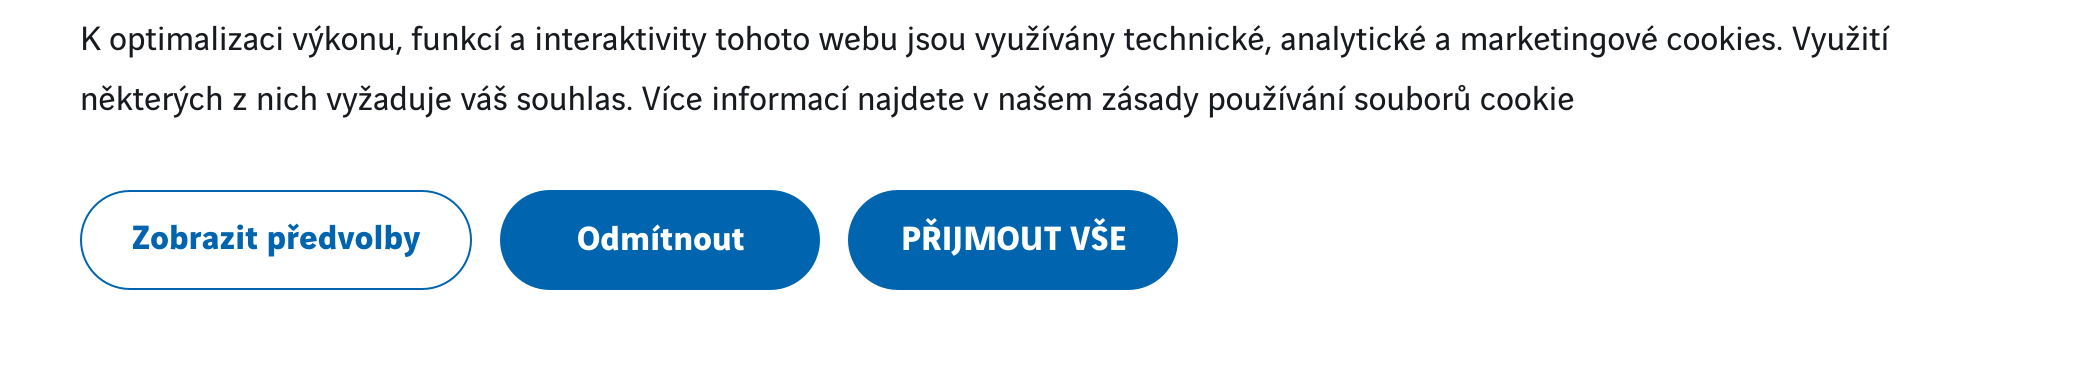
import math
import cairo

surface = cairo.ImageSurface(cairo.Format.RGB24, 2092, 384)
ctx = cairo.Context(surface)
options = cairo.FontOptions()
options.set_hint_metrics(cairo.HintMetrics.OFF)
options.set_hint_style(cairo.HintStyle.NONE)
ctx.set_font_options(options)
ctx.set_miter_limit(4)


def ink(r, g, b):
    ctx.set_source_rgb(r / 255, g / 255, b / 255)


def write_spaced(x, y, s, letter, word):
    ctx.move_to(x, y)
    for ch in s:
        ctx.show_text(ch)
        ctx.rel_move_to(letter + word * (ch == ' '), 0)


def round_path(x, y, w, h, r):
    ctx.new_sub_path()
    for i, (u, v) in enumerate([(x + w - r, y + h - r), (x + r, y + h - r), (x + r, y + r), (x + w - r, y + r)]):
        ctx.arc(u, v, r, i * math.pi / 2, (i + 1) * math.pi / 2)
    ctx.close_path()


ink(255, 255, 255)
ctx.paint()
ctx.select_font_face("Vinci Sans")
ctx.set_font_size(36)
ink(23, 26, 30)
write_spaced(80, 50, "K optimalizaci výkonu, funkcí a interaktivity tohoto webu jsou využívány technické, analytické a marketingové cookies. Využití", 0.2, 0)
write_spaced(80, 110, "některých z nich vyžaduje váš souhlas. Více informací najdete v našem zásady používání souborů cookie", 0.2, 0)
round_path(81, 191, 390, 98, 49)
ink(0, 100, 175)
ctx.stroke()
ctx.select_font_face("Vinci Sans", cairo.FontSlant.NORMAL, cairo.FontWeight.BOLD)
write_spaced(132, 249, "Zobrazit předvolby", 0.2, 0)
round_path(501, 191, 318, 98, 49)
ctx.fill_preserve()
ctx.stroke()
ink(255, 255, 255)
write_spaced(577, 250, "Odmítnout", 0.2, 0)
ink(0, 100, 175)
round_path(849, 191, 328, 98, 49)
ctx.fill_preserve()
ctx.stroke()
ink(255, 255, 255)
write_spaced(901, 250, "PŘIJMOUT VŠE", 0.2, 0)
surface.write_to_png("screenshot.png")
